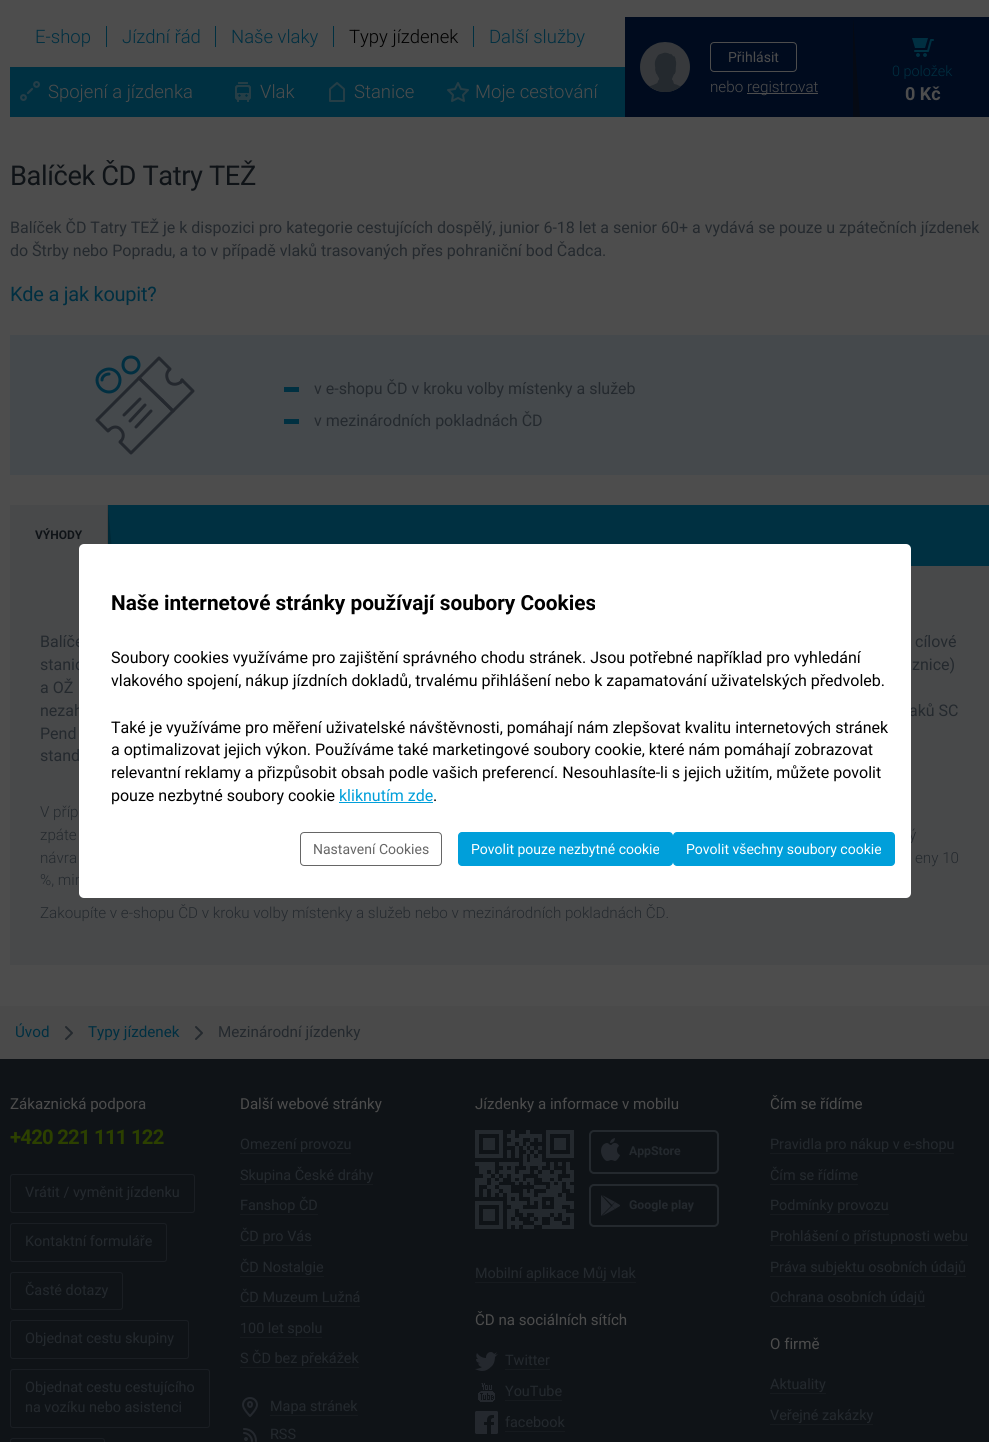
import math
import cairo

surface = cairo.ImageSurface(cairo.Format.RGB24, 989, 1442)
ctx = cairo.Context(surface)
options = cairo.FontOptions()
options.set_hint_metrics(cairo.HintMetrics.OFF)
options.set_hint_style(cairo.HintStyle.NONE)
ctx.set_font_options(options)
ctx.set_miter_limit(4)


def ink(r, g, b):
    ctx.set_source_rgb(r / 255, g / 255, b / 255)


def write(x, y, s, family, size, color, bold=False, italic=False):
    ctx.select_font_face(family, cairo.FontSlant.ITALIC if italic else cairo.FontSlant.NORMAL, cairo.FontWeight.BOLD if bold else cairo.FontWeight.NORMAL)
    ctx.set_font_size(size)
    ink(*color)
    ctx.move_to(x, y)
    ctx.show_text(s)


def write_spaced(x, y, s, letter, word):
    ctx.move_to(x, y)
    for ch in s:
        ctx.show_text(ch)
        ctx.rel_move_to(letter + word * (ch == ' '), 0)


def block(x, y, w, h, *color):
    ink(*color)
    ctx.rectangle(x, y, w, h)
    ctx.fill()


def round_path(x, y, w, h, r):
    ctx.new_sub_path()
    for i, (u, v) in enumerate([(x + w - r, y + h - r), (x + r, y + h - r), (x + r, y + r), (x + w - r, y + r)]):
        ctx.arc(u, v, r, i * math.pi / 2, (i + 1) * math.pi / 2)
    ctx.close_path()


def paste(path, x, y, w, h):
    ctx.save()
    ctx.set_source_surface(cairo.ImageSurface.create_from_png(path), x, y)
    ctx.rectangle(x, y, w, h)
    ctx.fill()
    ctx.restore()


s1 = dict(family="Roboto Light", size=18.5, color=(0, 47, 65))
s2 = dict(family="Roboto Light", size=18.5, color=(0, 0, 0))
s3 = dict(family="Roboto Light", size=18.5, color=(77, 77, 77))
s4 = dict(family="Roboto", size=14, color=(77, 77, 77))
s5 = dict(family="Roboto Light", size=15.2, color=(77, 77, 77))
s6 = dict(family="Roboto Light", size=14.4, color=(0, 47, 65))
s7 = dict(family="Roboto", size=18, color=(77, 77, 77), bold=True)
s8 = dict(family="Roboto", size=16, color=(36, 41, 46))
s9 = dict(family="Roboto", size=12, color=(15, 19, 23), bold=True)
s10 = dict(family="Roboto Light", size=15.2, color=(36, 41, 46))
s11 = dict(family="Roboto", size=20.8, color=(0, 0, 0), bold=True)
s12 = dict(family="Roboto", size=16, color=(0, 0, 0))
s13 = dict(family="Roboto", size=16, color=(0, 159, 218))
s14 = dict(family="Roboto", size=14, color=(102, 102, 102))
s15 = dict(family="Roboto", size=14, color=(255, 255, 255))
s16 = dict(family="Roboto", size=15.2, color=(0, 47, 65))
s17 = dict(family="Roboto", size=15.2, color=(36, 41, 46))
s18 = dict(family="Roboto", size=15.1, color=(77, 77, 77))
s19 = dict(family="Roboto", size=14.4, color=(36, 41, 46))
s20 = dict(family="Roboto", size=12.25, color=(36, 41, 46), bold=True)

ink(77, 77, 77)
ctx.paint()
write(35, 43, "E-shop", **s1)
block(106, 26, 1, 21, 0, 48, 65)
write(122, 43, "Jízdní řád", **s1)
block(215, 26, 1, 21, 0, 48, 65)
write(231, 43, "Naše vlaky", **s1)
block(333, 26, 1, 21, 0, 48, 65)
write(349, 43, "Typy jízdenek", **s2)
block(473, 26, 1, 21, 0, 48, 65)
write(489, 43, "Další služby", **s1)
block(10, 67, 615, 50, 0, 48, 65)
paste("pic1.png", 20, 81, 20, 20)
write(48, 98, "Spojení a jízdenka", **s3)
paste("pic2.png", 235, 82, 16, 20)
write(260, 98, "Vlak", **s3)
ctx.new_path()
ctx.move_to(344, 101)
ctx.line_to(330, 101)
ctx.line_to(330, 89)
ctx.line_to(337, 83)
ctx.line_to(344, 89)
ctx.close_path()
ink(38, 62, 70)
ctx.set_line_cap(cairo.LineCap.ROUND)
ctx.set_line_join(cairo.LineJoin.ROUND)
ctx.stroke()
write(354, 98, "Stanice", **s3)
ctx.new_path()
ctx.move_to(458, 83)
ctx.line_to(461, 89)
ctx.line_to(468, 90)
ctx.line_to(463, 95)
ctx.line_to(464, 101)
ctx.line_to(458, 98)
ctx.line_to(452, 101)
ctx.line_to(453, 95)
ctx.line_to(448, 90)
ctx.line_to(455, 89)
ctx.close_path()
ink(38, 62, 70)
ctx.stroke()
write(475, 98, "Moje cestování", **s3)
block(625, 17, 364, 100, 0, 11, 30)
ink(5, 10, 20)
ctx.set_fill_rule(cairo.FillRule.EVEN_ODD)
ctx.new_path()
ctx.move_to(853, 17)
ctx.line_to(860, 117)
ctx.line_to(853, 117)
ctx.close_path()
ctx.fill()
paste("pic3.png", 640, 42, 50, 50)
round_path(710.5, 42.5, 86, 29, 3.5)
ink(77, 77, 77)
ctx.set_line_width(1)
ctx.set_line_cap(cairo.LineCap.BUTT)
ctx.set_line_join(cairo.LineJoin.MITER)
ctx.stroke()
write(728, 62, "Přihlásit", **s4)
write(710, 92, "nebo", **s5)
block(747, 93, 71, 1, 77, 77, 77)
write(747, 92, "registrovat", **s5)
paste("pic4.png", 912, 38, 22, 19)
write(892, 76, "0 položek", **s6)
write(905, 100, "0 Kč", **s7)
ctx.select_font_face("Roboto")
ctx.set_font_size(27.25)
ink(15, 19, 23)
write_spaced(10, 185, "Balíček ČD Tatry TEŽ", -0.4, 0)
write(10, 233, "Balíček ČD Tatry TEŽ je k dispozici pro kategorie cestujících dospělý, junior 6-18 let a senior 60+ a vydává se pouze u zpátečních jízdenek", **s8)
write(10, 256, "do Štrby nebo Popradu, a to v případě vlaků trasovaných přes pohraniční bod Čadca.", **s8)
ctx.set_font_size(20)
ink(0, 47, 65)
write_spaced(10, 301, "Kde a jak koupit?", -0.25, 0)
block(10, 335, 979, 140, 69, 73, 76)
paste("pic5.png", 95, 355, 100, 100)
block(284, 387, 15, 5, 0, 48, 65)
write(314, 394, "v e-shopu ČD v kroku volby místenky a služeb", **s8)
block(284, 419, 15, 5, 0, 48, 65)
write(314, 426, "v mezinárodních pokladnách ČD", **s8)
block(108, 505, 881, 61, 0, 48, 65)
block(10, 505, 97, 61, 72, 73, 74)
ink(66, 66, 66)
ctx.set_fill_rule(cairo.FillRule.WINDING)
ctx.new_path()
ctx.move_to(108, 505)
ctx.line_to(108, 566)
ctx.line_to(107, 565)
ctx.line_to(107, 505)
ctx.close_path()
ctx.fill()
write(35, 539, "VÝHODY", **s9)
paste("pic6.png", 108, 510, 4, 34)
block(10, 566, 979, 399, 72, 73, 74)
write(40, 647, "Balíče", **s8)
write(915, 647, "cílové", **s8)
write(40, 670, "stanic", **s8)
write(912, 670, "znice)", **s8)
write(40, 693, "a OŽ", **s8)
write(40, 716, "nezah", **s8)
write(909, 716, "aků SC", **s8)
write(40, 739, "Pend", **s8)
write(40, 761, "stand", **s8)
write(40, 817, "V příp", **s10)
write(40, 840, "zpáte", **s10)
write(909, 840, "ý", **s10)
write(40, 863, "návra", **s10)
write(915, 863, "eny 10", **s10)
write(40, 885, "%, min", **s10)
write(40, 918, "Zakoupíte v e-shopu ČD v kroku volby místenky a služeb nebo v mezinárodních pokladnách ČD.", **s10)
ink(255, 255, 255)
round_path(79, 544, 832, 354, 5)
ctx.fill()
write(111, 610, "Naše internetové stránky používají soubory Cookies", **s11)
write(111, 663, "Soubory cookies využíváme pro zajištění správného chodu stránek. Jsou potřebné například pro vyhledání", **s12)
write(111, 686, "vlakového spojení, nákup jízdních dokladů, trvalému přihlášení nebo k zapamatování uživatelských předvoleb.", **s12)
write(111, 733, "Také je využíváme pro měření uživatelské návštěvnosti, pomáhají nám zlepšovat kvalitu internetových stránek", **s12)
write(111, 755, "a optimalizovat jejich výkon. Používáme také marketingové soubory cookie, které nám pomáhají zobrazovat", **s12)
write(111, 778, "relevantní reklamy a přizpůsobit obsah podle vašich preferencí. Nesouhlasíte-li s jejich užitím, můžete povolit", **s12)
write(111, 801, "pouze nezbytné soubory cookie", **s12)
write(339, 801, "kliknutím zde", **s13)
block(339, 802, 94, 1, 0, 159, 218)
write(433, 801, ".", **s12)
round_path(300.5, 832.5, 141, 33, 3.5)
ink(102, 102, 102)
ctx.stroke()
write(313, 854, "Nastavení Cookies", **s14)
ink(0, 159, 218)
round_path(458, 832, 215, 34, 4)
ctx.fill()
write(471, 854, "Povolit pouze nezbytné cookie", **s15)
ink(0, 159, 218)
round_path(673, 832, 222, 34, 4)
ctx.fill()
write(686, 854, "Povolit všechny soubory cookie", **s15)
block(0, 1006, 989, 53, 74, 74, 74)
ctx.new_path()
ctx.move_to(66, 1039)
ctx.line_to(72, 1033)
ctx.move_to(72, 1033)
ctx.line_to(66, 1027)
ink(36, 41, 46)
ctx.set_line_width(2)
ctx.set_line_cap(cairo.LineCap.ROUND)
ctx.set_line_join(cairo.LineJoin.ROUND)
ctx.stroke()
write(15, 1037, "Úvod", **s16)
ctx.new_path()
ctx.move_to(196, 1039)
ctx.line_to(202, 1033)
ctx.move_to(202, 1033)
ctx.line_to(196, 1027)
ink(36, 41, 46)
ctx.stroke()
write(88, 1037, "Typy jízdenek", **s16)
write(218, 1037, "Mezinárodní jízdenky", **s17)
block(0, 1059, 989, 383, 15, 19, 23)
write(10, 1109, "Zákaznická podpora", **s18)
ctx.select_font_face("Roboto", cairo.FontSlant.NORMAL, cairo.FontWeight.BOLD)
ctx.set_font_size(20.25)
ink(44, 64, 0)
write_spaced(10, 1144, "+420 221 111 122", -0.75, 0)
round_path(10.5, 1174.5, 184, 38, 2.5)
ink(26, 30, 35)
ctx.set_line_width(1)
ctx.set_line_cap(cairo.LineCap.BUTT)
ctx.set_line_join(cairo.LineJoin.MITER)
ctx.stroke()
write(25, 1197, "Vrátit / vyměnit jízdenku", **s19)
round_path(10.5, 1223.5, 156, 38, 2.5)
ink(26, 30, 35)
ctx.stroke()
write(25, 1246, "Kontaktní formuláře", **s19)
round_path(10.5, 1272.5, 112, 37, 2.5)
ink(26, 30, 35)
ctx.stroke()
write(25, 1295, "Časté dotazy", **s19)
round_path(10.5, 1320.5, 178, 38, 2.5)
ink(26, 30, 35)
ctx.stroke()
write(25, 1343, "Objednat cestu skupiny", **s19)
round_path(10.5, 1369.5, 199, 58, 2.5)
ink(26, 30, 35)
ctx.stroke()
write(25, 1392, "Objednat cestu cestujícího", **s19)
write(25, 1412, "na vozíku nebo asistenci", **s19)
round_path(10.5, 1438.5, 94, 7, 2.5)
ink(26, 30, 35)
ctx.stroke()
write(240, 1109, "Další webové stránky", **s18)
write(240, 1149, "Omezení provozu", **s19)
block(240, 1153, 111, 1, 22, 26, 30)
write(240, 1180, "Skupina České dráhy", **s19)
block(240, 1184, 133, 1, 22, 26, 30)
write(240, 1210, "Fanshop ČD", **s19)
block(240, 1214, 78, 1, 22, 26, 30)
write(240, 1241, "ČD pro Vás", **s19)
block(240, 1245, 72, 1, 22, 26, 30)
write(240, 1272, "ČD Nostalgie", **s19)
block(240, 1276, 84, 1, 22, 26, 30)
write(240, 1302, "ČD Muzeum Lužná", **s19)
block(240, 1306, 120, 1, 22, 26, 30)
write(240, 1333, "100 let spolu", **s19)
block(240, 1337, 82, 1, 22, 26, 30)
write(240, 1363, "S ČD bez překážek", **s19)
block(240, 1367, 119, 1, 22, 26, 30)
paste("pic7.png", 242, 1397, 16, 20)
write(270, 1411, "Mapa stránek", **s19)
block(270, 1415, 88, 1, 22, 26, 30)
paste("pic8.png", 243, 1428, 14, 14)
write(270, 1439, "RSS", **s19)
write(475, 1109, "Jízdenky a informace v mobilu", **s18)
paste("pic9.png", 475, 1130, 99, 99)
paste("pic10.png", 601, 1138, 19, 23)
round_path(590, 1131, 128, 42, 4)
ink(36, 41, 46)
ctx.set_line_width(2)
ctx.stroke()
write(629, 1155, "AppStore", **s20)
paste("pic11.png", 601, 1195, 19, 21)
round_path(590, 1185, 128, 41, 4)
ctx.stroke()
write(629, 1209, "Google play", **s20)
write(475, 1278, "Mobilní aplikace Můj vlak", **s19)
block(475, 1282, 161, 1, 22, 26, 30)
write(475, 1325, "ČD na sociálních sítích", **s18)
paste("pic12.png", 475, 1352, 23, 19)
write(505, 1365, "Twitter", **s19)
block(505, 1369, 45, 1, 22, 26, 30)
paste("pic13.png", 478, 1383, 17, 19)
write(505, 1396, "YouTube", **s19)
block(505, 1400, 57, 1, 22, 26, 30)
paste("pic14.png", 475, 1411, 23, 23)
write(505, 1427, "facebook", **s19)
block(505, 1431, 60, 1, 22, 26, 30)
write(770, 1109, "Čím se řídíme", **s18)
write(770, 1149, "Pravidla pro nákup v e-shopu", **s19)
block(770, 1153, 184, 1, 22, 26, 30)
write(770, 1180, "Čím se řídíme", **s19)
block(770, 1184, 88, 1, 22, 26, 30)
write(770, 1210, "Podmínky provozu", **s19)
block(770, 1214, 119, 1, 22, 26, 30)
write(770, 1241, "Prohlášení o přístupnosti webu", **s19)
block(770, 1245, 198, 1, 22, 26, 30)
write(770, 1272, "Práva subjektu osobních údajů", **s19)
block(770, 1276, 196, 1, 22, 26, 30)
write(770, 1302, "Ochrana osobních údajů", **s19)
block(770, 1306, 155, 1, 22, 26, 30)
write(770, 1349, "O firmě", **s18)
write(770, 1389, "Aktuality", **s19)
block(770, 1393, 56, 1, 22, 26, 30)
write(770, 1420, "Veřejné zakázky", **s19)
block(770, 1424, 103, 1, 22, 26, 30)
surface.write_to_png("screenshot.png")
